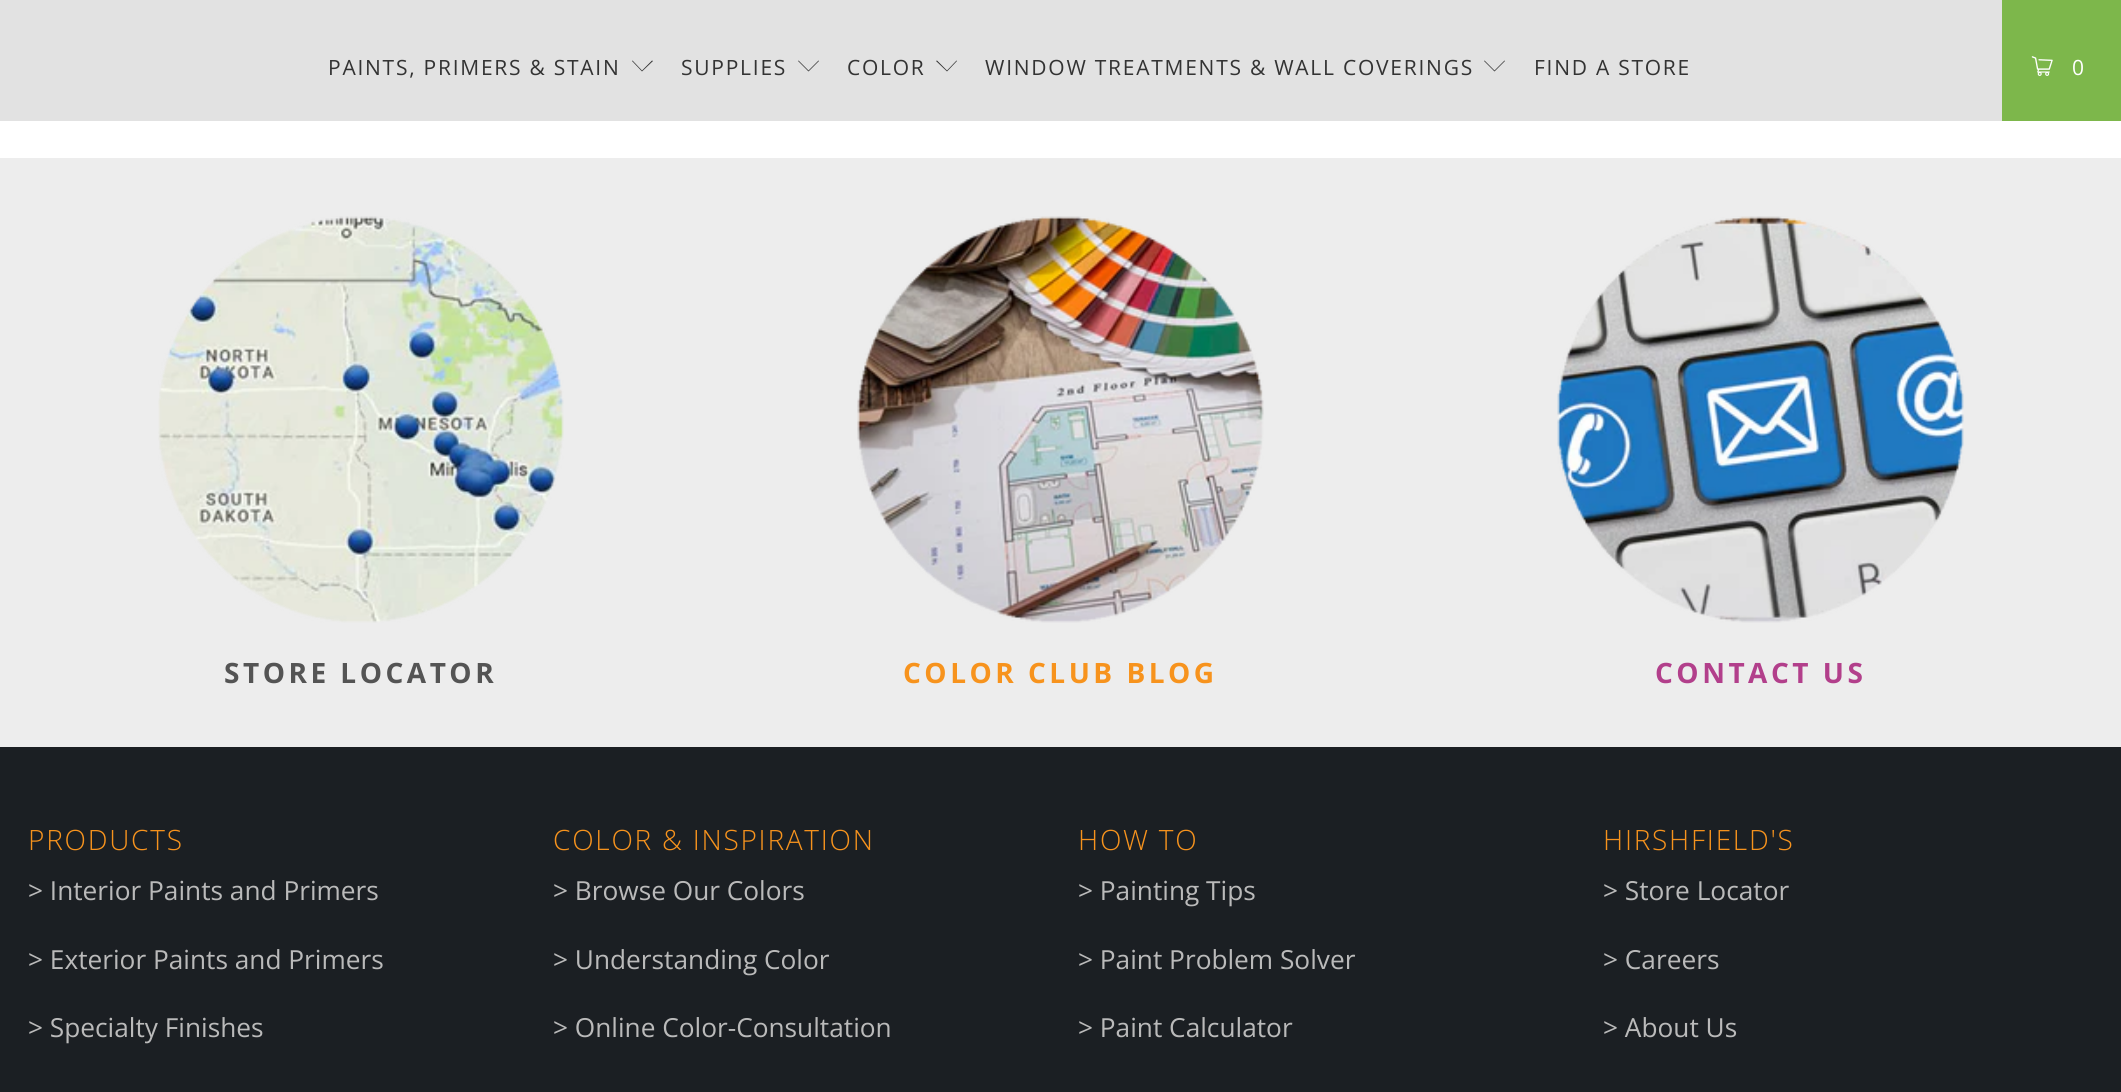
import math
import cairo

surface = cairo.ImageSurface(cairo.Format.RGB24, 2121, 1092)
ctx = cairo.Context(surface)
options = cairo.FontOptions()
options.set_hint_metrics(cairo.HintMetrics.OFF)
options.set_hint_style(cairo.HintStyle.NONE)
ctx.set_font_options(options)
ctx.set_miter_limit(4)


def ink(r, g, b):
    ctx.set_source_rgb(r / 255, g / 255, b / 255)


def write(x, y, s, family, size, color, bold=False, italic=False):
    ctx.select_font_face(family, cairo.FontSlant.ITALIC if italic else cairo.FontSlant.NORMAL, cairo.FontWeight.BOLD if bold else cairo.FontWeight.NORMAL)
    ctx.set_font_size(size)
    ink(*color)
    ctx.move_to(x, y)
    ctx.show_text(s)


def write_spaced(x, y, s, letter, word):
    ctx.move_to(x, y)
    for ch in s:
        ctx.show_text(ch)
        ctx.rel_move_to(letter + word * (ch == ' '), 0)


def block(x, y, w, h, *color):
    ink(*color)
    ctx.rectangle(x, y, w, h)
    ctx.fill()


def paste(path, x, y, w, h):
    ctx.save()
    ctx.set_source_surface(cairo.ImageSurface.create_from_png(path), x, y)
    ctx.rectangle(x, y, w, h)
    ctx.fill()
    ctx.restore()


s1 = dict(family="Open Sans", size=26.25, color=(186, 186, 186))

ink(255, 255, 255)
ctx.paint()
block(0, 0, 2002, 121, 226, 226, 226)
ctx.select_font_face("Open Sans")
ctx.set_font_size(21)
ink(51, 51, 51)
write_spaced(328, 75, "PAINTS, PRIMERS & STAIN", 1.75, 0)
ctx.new_path()
ctx.move_to(642, 71.5)
ctx.line_to(632, 61)
ctx.line_to(632.5, 60.5)
ctx.line_to(642, 70.5)
ctx.line_to(652, 60.5)
ctx.line_to(653, 61)
ctx.close_path()
ctx.fill()
write_spaced(681, 75, "SUPPLIES", 1.75, 0)
ctx.new_path()
ctx.move_to(808.5, 71.5)
ctx.line_to(798, 61)
ctx.line_to(798.5, 60.5)
ctx.line_to(808.5, 70.5)
ctx.line_to(818.5, 60.5)
ctx.line_to(819, 61)
ctx.close_path()
ctx.fill()
write_spaced(847, 75, "COLOR", 1.75, 0)
ctx.new_path()
ctx.move_to(947, 71.5)
ctx.line_to(936, 61)
ctx.line_to(937, 60.5)
ctx.line_to(947, 70.5)
ctx.line_to(956.5, 60.5)
ctx.line_to(957, 61)
ctx.close_path()
ctx.fill()
write_spaced(985, 75, "WINDOW TREATMENTS & WALL COVERINGS", 1.75, 0)
ctx.new_path()
ctx.move_to(1494.5, 71.5)
ctx.line_to(1484, 61)
ctx.line_to(1484.5, 60.5)
ctx.line_to(1494.5, 70.5)
ctx.line_to(1504.5, 60.5)
ctx.line_to(1505, 61)
ctx.close_path()
ctx.fill()
write_spaced(1534, 75, "FIND A STORE", 1.75, 0)
block(2002, 0, 119, 121, 125, 183, 75)
paste("pic1.png", 2031, 56, 22, 20)
ink(255, 255, 255)
write_spaced(2072, 75, "0", 1.75, 0)
block(0, 158, 2121, 589, 237, 237, 237)
paste("pic2.png", 158, 216, 406, 407)
ctx.select_font_face("Open Sans", cairo.FontSlant.NORMAL, cairo.FontWeight.BOLD)
ctx.set_font_size(28)
ink(84, 84, 84)
write_spaced(224, 683, "STORE LOCATOR", 3.5, 0)
paste("pic3.png", 857, 216, 407, 407)
ink(247, 147, 29)
write_spaced(903, 683, "COLOR CLUB BLOG", 3.5, 0)
paste("pic4.png", 1557, 216, 407, 407)
ink(178, 63, 139)
write_spaced(1655, 683, "CONTACT US", 3.5, 0)
block(0, 747, 2121, 345, 27, 31, 35)
ctx.select_font_face("Open Sans Light")
ink(247, 147, 29)
write_spaced(28, 850, "PRODUCTS", 1.75, 0)
write(28, 900, "> Interior Paints and Primers", **s1)
write(28, 969, "> Exterior Paints and Primers", **s1)
write(28, 1037, "> Specialty Finishes", **s1)
ctx.select_font_face("Open Sans Light")
ctx.set_font_size(28)
ink(247, 147, 29)
write_spaced(553, 850, "COLOR & INSPIRATION", 1.75, 0)
write(553, 900, "> Browse Our Colors", **s1)
write(553, 969, "> Understanding Color", **s1)
write(553, 1037, "> Online Color-Consultation", **s1)
ctx.select_font_face("Open Sans Light")
ctx.set_font_size(28)
ink(247, 147, 29)
write_spaced(1078, 850, "HOW TO", 1.75, 0)
write(1078, 900, "> Painting Tips", **s1)
write(1078, 969, "> Paint Problem Solver", **s1)
write(1078, 1037, "> Paint Calculator", **s1)
ctx.select_font_face("Open Sans Light")
ctx.set_font_size(28)
ink(247, 147, 29)
write_spaced(1603, 850, "HIRSHFIELD'S", 1.75, 0)
write(1603, 900, "> Store Locator", **s1)
write(1603, 969, "> Careers", **s1)
write(1603, 1037, "> About Us", **s1)
surface.write_to_png("screenshot.png")
